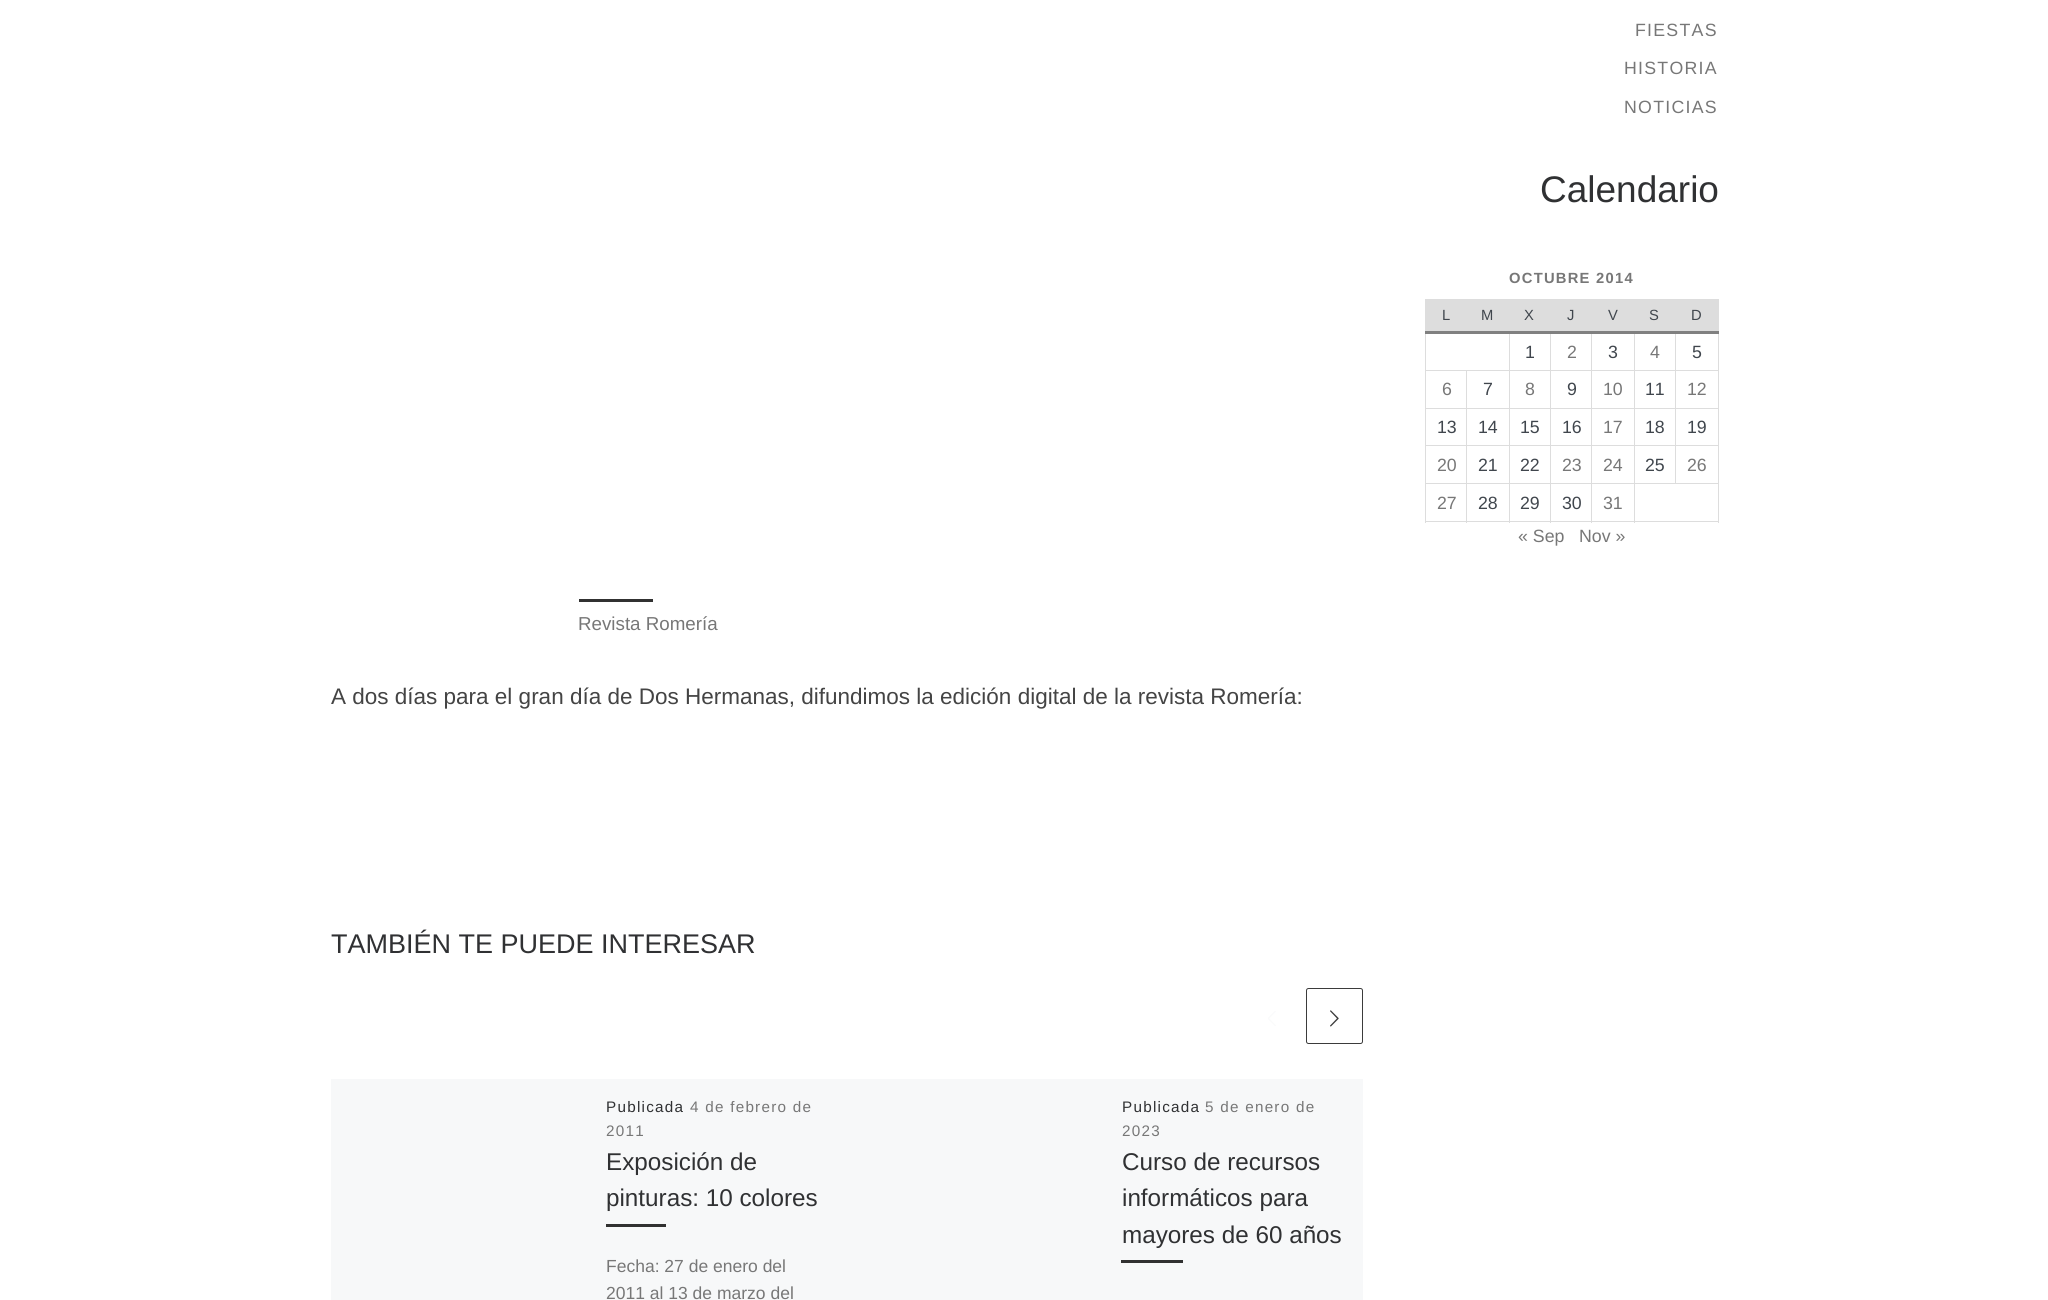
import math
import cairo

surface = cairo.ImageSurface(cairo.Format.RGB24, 2048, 1300)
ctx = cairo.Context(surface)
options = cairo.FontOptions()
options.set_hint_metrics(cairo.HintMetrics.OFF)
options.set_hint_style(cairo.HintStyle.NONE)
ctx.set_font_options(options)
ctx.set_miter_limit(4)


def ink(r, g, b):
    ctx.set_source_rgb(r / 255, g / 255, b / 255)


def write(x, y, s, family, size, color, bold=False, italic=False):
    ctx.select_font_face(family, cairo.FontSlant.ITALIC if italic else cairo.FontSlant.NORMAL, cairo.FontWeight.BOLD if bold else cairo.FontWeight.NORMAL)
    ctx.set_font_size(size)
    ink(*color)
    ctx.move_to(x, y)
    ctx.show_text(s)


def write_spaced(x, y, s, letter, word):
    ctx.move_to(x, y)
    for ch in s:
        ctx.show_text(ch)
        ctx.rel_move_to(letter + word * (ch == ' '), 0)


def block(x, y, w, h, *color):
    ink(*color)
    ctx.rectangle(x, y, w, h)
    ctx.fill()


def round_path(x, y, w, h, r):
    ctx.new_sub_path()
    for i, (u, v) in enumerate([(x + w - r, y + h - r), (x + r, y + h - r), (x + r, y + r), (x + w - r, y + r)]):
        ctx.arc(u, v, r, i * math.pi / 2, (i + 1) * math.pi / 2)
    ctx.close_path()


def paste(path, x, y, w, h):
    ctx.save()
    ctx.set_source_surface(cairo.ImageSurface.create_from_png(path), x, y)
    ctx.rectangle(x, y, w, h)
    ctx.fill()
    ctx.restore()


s1 = dict(family="Liberation Sans", size=37, color=(48, 49, 51))
s2 = dict(family="Liberation Sans", size=17.75, color=(64, 70, 77))
s3 = dict(family="Liberation Sans", size=17.75, color=(119, 119, 119))
s4 = dict(family="Liberation Sans", size=18.75, color=(119, 119, 119))
s5 = dict(family="Liberation Sans", size=22.5, color=(68, 68, 68))
s6 = dict(family="Liberation Sans", size=27, color=(48, 49, 51))
s7 = dict(family="Liberation Sans", size=24.25, color=(48, 49, 51))
s8 = dict(family="Liberation Sans", size=17.5, color=(119, 119, 119))

ink(255, 255, 255)
ctx.paint()
ctx.select_font_face("Liberation Sans")
ctx.set_font_size(17.75)
ink(119, 119, 119)
write_spaced(1635, 36, "FIESTAS", 1.25, 0)
write_spaced(1624, 74, "HISTORIA", 1.25, 0)
write_spaced(1624, 113, "NOTICIAS", 1.25, 0)
write(1540, 202, "Calendario", **s1)
ctx.select_font_face("Liberation Sans", cairo.FontSlant.NORMAL, cairo.FontWeight.BOLD)
ctx.set_font_size(14.75)
ink(119, 119, 119)
write_spaced(1509, 283, "OCTUBRE 2014", 1.25, 0)
block(1425, 299, 294, 1, 221, 221, 221)
block(1675, 370, 44, 1, 221, 221, 221)
block(1675, 408, 44, 1, 221, 221, 221)
block(1675, 445, 44, 1, 221, 221, 221)
block(1634, 483, 85, 1, 221, 221, 221)
block(1675, 445, 1, 39, 221, 221, 221)
block(1634, 445, 42, 1, 221, 221, 221)
block(1675, 408, 1, 38, 221, 221, 221)
block(1634, 408, 42, 1, 221, 221, 221)
block(1675, 370, 1, 39, 221, 221, 221)
block(1634, 370, 42, 1, 221, 221, 221)
block(1718, 483, 1, 40, 221, 221, 221)
block(1634, 521, 85, 1, 221, 221, 221)
block(1634, 483, 1, 40, 221, 221, 221)
block(1591, 483, 44, 1, 221, 221, 221)
block(1634, 445, 1, 39, 221, 221, 221)
block(1591, 445, 44, 1, 221, 221, 221)
block(1634, 408, 1, 38, 221, 221, 221)
block(1591, 408, 44, 1, 221, 221, 221)
block(1634, 370, 1, 39, 221, 221, 221)
block(1591, 370, 44, 1, 221, 221, 221)
block(1591, 521, 44, 1, 221, 221, 221)
block(1591, 483, 1, 40, 221, 221, 221)
block(1550, 483, 43, 1, 221, 221, 221)
block(1591, 445, 1, 39, 221, 221, 221)
block(1550, 445, 43, 1, 221, 221, 221)
block(1591, 408, 1, 38, 221, 221, 221)
block(1550, 408, 43, 1, 221, 221, 221)
block(1591, 370, 1, 39, 221, 221, 221)
block(1550, 370, 43, 1, 221, 221, 221)
block(1550, 521, 43, 1, 221, 221, 221)
block(1550, 483, 1, 40, 221, 221, 221)
block(1509, 483, 42, 1, 221, 221, 221)
block(1550, 445, 1, 39, 221, 221, 221)
block(1509, 445, 42, 1, 221, 221, 221)
block(1550, 408, 1, 38, 221, 221, 221)
block(1509, 408, 42, 1, 221, 221, 221)
block(1550, 370, 1, 39, 221, 221, 221)
block(1509, 370, 42, 1, 221, 221, 221)
block(1509, 521, 42, 1, 221, 221, 221)
block(1509, 483, 1, 40, 221, 221, 221)
block(1466, 483, 44, 1, 221, 221, 221)
block(1509, 445, 1, 39, 221, 221, 221)
block(1466, 445, 44, 1, 221, 221, 221)
block(1509, 408, 1, 38, 221, 221, 221)
block(1466, 408, 44, 1, 221, 221, 221)
block(1509, 370, 1, 39, 221, 221, 221)
block(1466, 370, 44, 1, 221, 221, 221)
block(1466, 521, 44, 1, 221, 221, 221)
block(1466, 483, 1, 40, 221, 221, 221)
block(1425, 483, 43, 1, 221, 221, 221)
block(1466, 445, 1, 39, 221, 221, 221)
block(1425, 445, 43, 1, 221, 221, 221)
block(1466, 408, 1, 38, 221, 221, 221)
block(1425, 408, 43, 1, 221, 221, 221)
block(1466, 370, 1, 39, 221, 221, 221)
block(1425, 370, 43, 1, 221, 221, 221)
block(1425, 521, 43, 1, 221, 221, 221)
block(1425, 483, 1, 40, 221, 221, 221)
block(1425, 445, 1, 39, 221, 221, 221)
block(1425, 408, 1, 38, 221, 221, 221)
block(1425, 331, 1, 78, 221, 221, 221)
block(1425, 299, 1, 34, 221, 221, 221)
block(1718, 445, 1, 39, 221, 221, 221)
block(1718, 408, 1, 38, 221, 221, 221)
block(1718, 331, 1, 78, 221, 221, 221)
block(1718, 299, 1, 34, 221, 221, 221)
block(1509, 331, 1, 40, 221, 221, 221)
block(1550, 331, 1, 40, 221, 221, 221)
block(1591, 331, 1, 40, 221, 221, 221)
block(1634, 331, 1, 40, 221, 221, 221)
block(1675, 331, 1, 40, 221, 221, 221)
block(1425, 331, 294, 3, 128, 128, 128)
block(1426, 300, 292, 31, 221, 221, 221)
ctx.select_font_face("Liberation Sans")
ink(64, 70, 77)
write_spaced(1442, 320, "L", 1.25, 0)
write_spaced(1481, 320, "M", 1.25, 0)
write_spaced(1524, 320, "X", 1.25, 0)
write_spaced(1567, 320, "J", 1.25, 0)
write_spaced(1608, 320, "V", 1.25, 0)
write_spaced(1649, 320, "S", 1.25, 0)
write_spaced(1691, 320, "D", 1.25, 0)
write(1525, 358, "1", **s2)
write(1567, 358, "2", **s3)
write(1608, 358, "3", **s2)
write(1650, 358, "4", **s3)
write(1692, 358, "5", **s2)
write(1442, 395, "6", **s3)
write(1483, 395, "7", **s2)
write(1525, 395, "8", **s3)
write(1567, 395, "9", **s2)
write(1603, 395, "10", **s3)
write(1645, 395, "11", **s2)
write(1687, 395, "12", **s3)
write(1437, 433, "13", **s2)
write(1478, 433, "14", **s2)
write(1520, 433, "15", **s2)
write(1562, 433, "16", **s2)
write(1603, 433, "17", **s3)
write(1645, 433, "18", **s2)
write(1687, 433, "19", **s2)
write(1437, 471, "20", **s3)
write(1478, 471, "21", **s2)
write(1520, 471, "22", **s2)
write(1562, 471, "23", **s3)
write(1603, 471, "24", **s3)
write(1645, 471, "25", **s2)
write(1687, 471, "26", **s3)
write(1437, 509, "27", **s3)
write(1478, 509, "28", **s2)
write(1520, 509, "29", **s2)
write(1562, 509, "30", **s2)
write(1603, 509, "31", **s3)
write(1518, 542, "« Sep", **s3)
write(1579, 542, "Nov »", **s3)
block(579, 599, 74, 3, 49, 49, 49)
write(578, 630, "Revista Romería", **s4)
write(331, 704, "A dos días para el gran día de Dos Hermanas, difundimos la edición digital de la revista Romería:", **s5)
write(331, 953, "TAMBIÉN TE PUEDE INTERESAR", **s6)
paste("pic1.png", 1268, 1011, 8, 15)
round_path(1306.5, 988.5, 56, 55, 2)
ink(59, 59, 59)
ctx.set_line_width(1)
ctx.stroke()
paste("pic2.png", 1330, 1010, 9, 17)
block(331, 1079, 1032, 221, 247, 248, 249)
ctx.set_font_size(15.25)
ink(48, 49, 51)
write_spaced(606, 1112, "Publicada", 1.25, 0)
ink(119, 119, 119)
write_spaced(690, 1112, "4 de febrero de", 1.25, 0)
write_spaced(606, 1136, "2011", 1.25, 0)
write(606, 1170, "Exposición de", **s7)
write(606, 1206, "pinturas: 10 colores", **s7)
block(606, 1224, 60, 3, 49, 49, 49)
write(606, 1272, "Fecha: 27 de enero del", **s8)
write(606, 1299, "2011 al 13 de marzo del", **s8)
ctx.set_font_size(15.25)
ink(48, 49, 51)
write_spaced(1122, 1112, "Publicada", 1.25, 0)
ink(119, 119, 119)
write_spaced(1205, 1112, "5 de enero de", 1.25, 0)
write_spaced(1122, 1136, "2023", 1.25, 0)
write(1122, 1170, "Curso de recursos", **s7)
write(1122, 1206, "informáticos para", **s7)
write(1122, 1243, "mayores de 60 años", **s7)
block(1121, 1260, 62, 3, 49, 49, 49)
surface.write_to_png("screenshot.png")
